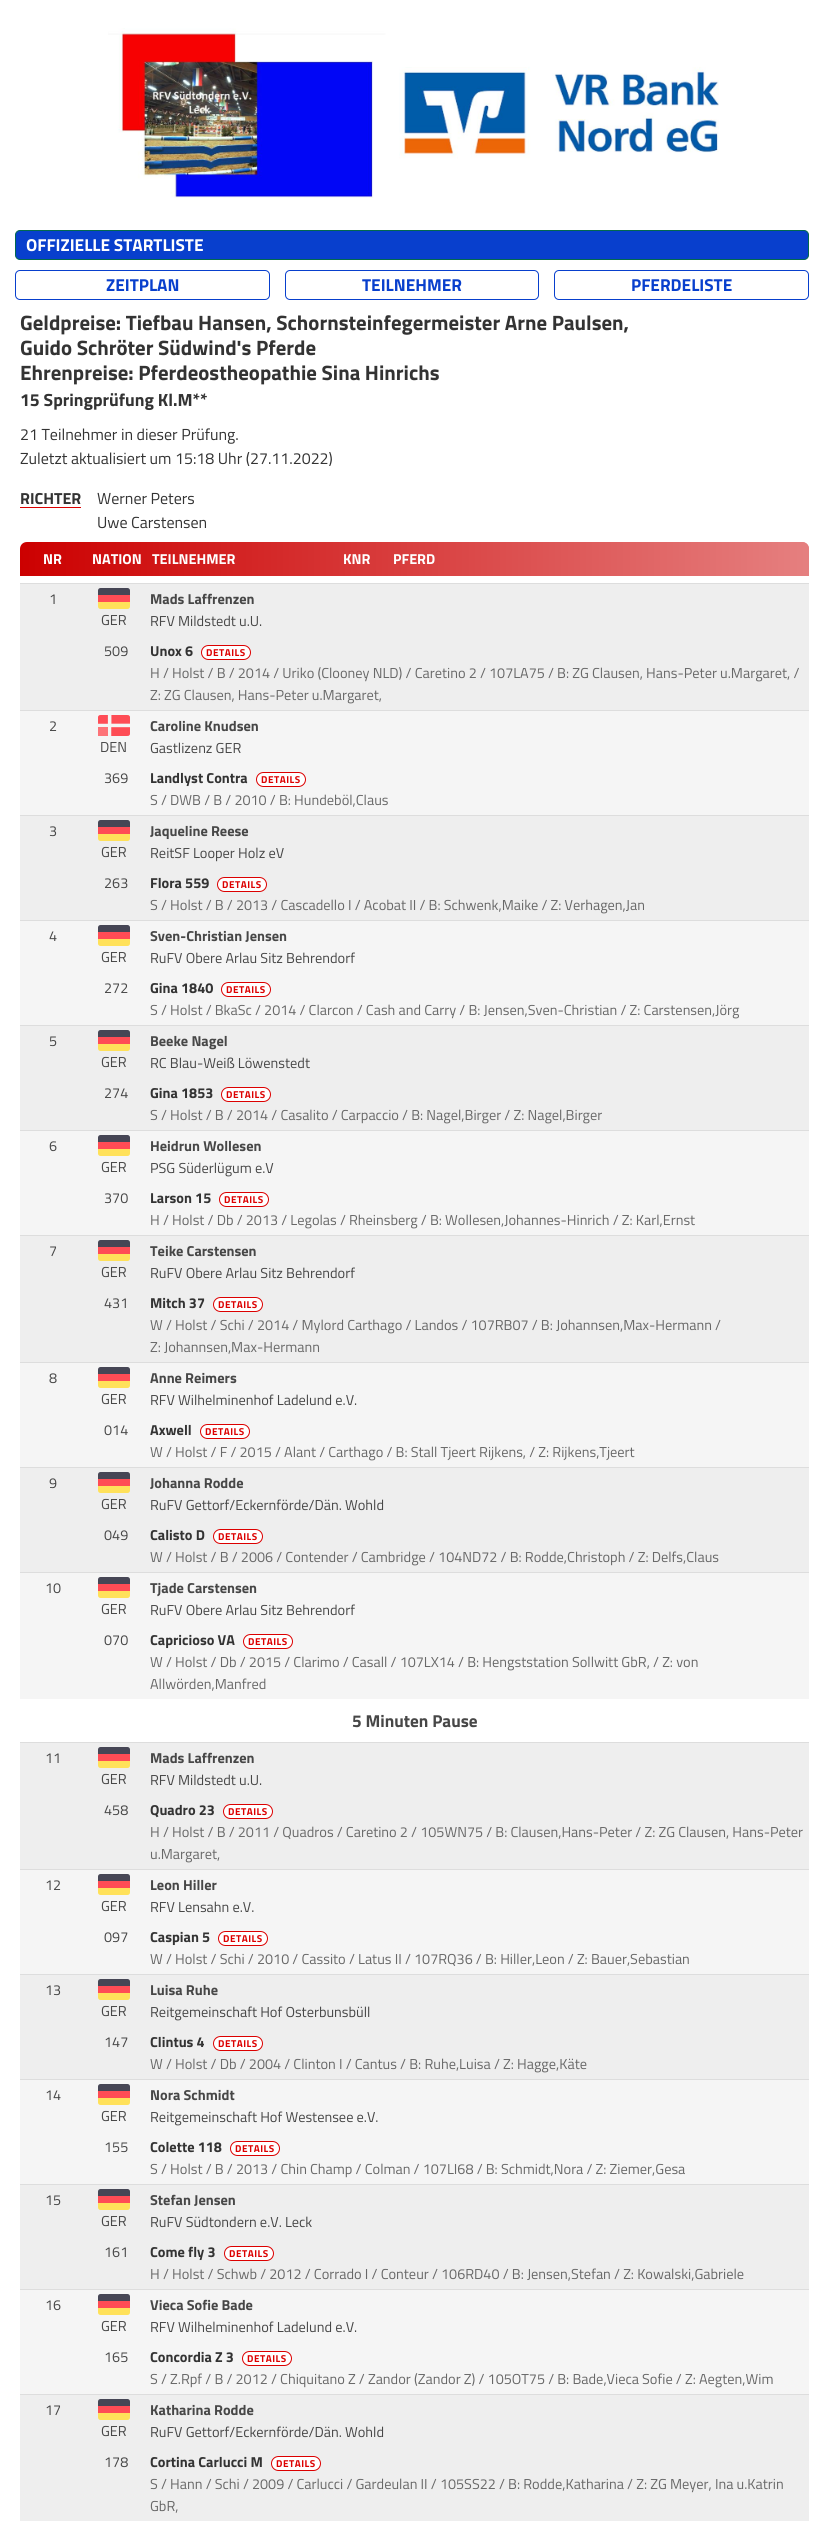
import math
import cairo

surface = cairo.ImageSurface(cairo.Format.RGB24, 829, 2521)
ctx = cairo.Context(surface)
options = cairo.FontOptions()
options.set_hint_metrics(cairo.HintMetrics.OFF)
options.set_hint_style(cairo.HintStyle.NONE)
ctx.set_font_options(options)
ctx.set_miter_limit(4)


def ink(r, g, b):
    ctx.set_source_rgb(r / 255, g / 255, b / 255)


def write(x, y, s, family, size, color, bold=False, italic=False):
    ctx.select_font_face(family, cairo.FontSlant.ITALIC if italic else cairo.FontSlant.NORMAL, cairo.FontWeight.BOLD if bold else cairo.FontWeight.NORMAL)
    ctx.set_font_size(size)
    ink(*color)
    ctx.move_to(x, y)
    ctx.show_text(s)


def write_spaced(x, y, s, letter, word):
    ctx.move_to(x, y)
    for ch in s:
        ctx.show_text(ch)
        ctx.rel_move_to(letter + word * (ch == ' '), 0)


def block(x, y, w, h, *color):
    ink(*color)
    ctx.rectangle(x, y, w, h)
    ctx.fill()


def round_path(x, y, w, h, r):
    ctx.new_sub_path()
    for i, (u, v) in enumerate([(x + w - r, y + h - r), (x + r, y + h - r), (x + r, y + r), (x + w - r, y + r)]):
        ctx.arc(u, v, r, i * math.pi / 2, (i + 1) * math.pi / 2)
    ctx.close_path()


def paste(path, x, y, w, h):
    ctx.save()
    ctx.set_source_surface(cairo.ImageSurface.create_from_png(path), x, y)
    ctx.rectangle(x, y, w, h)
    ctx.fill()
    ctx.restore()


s1 = dict(family="Titillium Web", size=17.25, color=(255, 255, 255), bold=True)
s2 = dict(family="Titillium Web", size=17.25, color=(8, 63, 205), bold=True)
s3 = dict(family="Titillium Web", size=20.8, color=(51, 51, 51), bold=True)
s4 = dict(family="Titillium Web", size=17.6, color=(51, 51, 51), bold=True)
s5 = dict(family="Titillium Web", size=16, color=(51, 51, 51))
s6 = dict(family="Titillium Web", size=16, color=(51, 51, 51), bold=True)
s7 = dict(family="Titillium Web", size=14.4, color=(255, 255, 255), bold=True)
s8 = dict(family="Titillium Web", size=14.4, color=(71, 71, 71))
s9 = dict(family="Titillium Web", size=14.4, color=(71, 71, 71), bold=True)
s10 = dict(family="Titillium Web", size=14.4, color=(51, 51, 51), bold=True)
s11 = dict(family="Titillium Web", size=14.4, color=(104, 104, 104))
s12 = dict(family="Titillium Web", size=17.25, color=(71, 71, 71), bold=True)

ink(255, 255, 255)
ctx.paint()
paste("pic1.png", 108, 28, 611, 170)
ink(8, 63, 205)
round_path(15.5, 230.5, 793, 29, 4.5)
ctx.fill_preserve()
ink(1, 105, 78)
ctx.set_line_width(1)
ctx.stroke()
write(26, 251, "OFFIZIELLE STARTLISTE", **s1)
round_path(15.5, 270.5, 254, 29, 4.5)
ink(8, 63, 205)
ctx.stroke()
write(106, 291, "ZEITPLAN", **s2)
round_path(285.5, 270.5, 253, 29, 4.5)
ctx.stroke()
write(362, 291, "TEILNEHMER", **s2)
round_path(554.5, 270.5, 254, 29, 4.5)
ctx.stroke()
write(631, 291, "PFERDELISTE", **s2)
write(20, 330, "Geldpreise: Tiefbau Hansen, Schornsteinfegermeister Arne Paulsen,", **s3)
write(20, 355, "Guido Schröter Südwind's Pferde", **s3)
write(20, 380, "Ehrenpreise: Pferdeostheopathie Sina Hinrichs", **s3)
write(20, 406, "15 Springprüfung Kl.M**", **s4)
write(20, 440, "21 Teilnehmer in dieser Prüfung.", **s5)
write(20, 464, "Zuletzt aktualisiert um 15:18 Uhr (27.11.2022)", **s5)
write(20, 504, "RICHTER", **s6)
block(20, 507, 61, 1, 220, 0, 0)
write(97, 504, "Werner Peters", **s5)
write(97, 528, "Uwe Carstensen", **s5)
ink(204, 0, 0)
ctx.new_path()
ctx.move_to(27, 542)
ctx.line_to(802, 542)
ctx.curve_to(806, 542, 809, 545, 809, 549)
ctx.line_to(809, 576)
ctx.line_to(20, 576)
ctx.line_to(20, 549)
ctx.curve_to(20, 545, 23, 542, 27, 542)
ctx.close_path()
ctx.fill()
gradient = cairo.LinearGradient(20, 559, 809, 559)
gradient.add_color_stop_rgba(0, 1, 1, 1, 0)
gradient.add_color_stop_rgba(1, 1, 1, 1, 0.5)
ctx.set_source(gradient)
ctx.new_path()
ctx.move_to(27, 542)
ctx.line_to(802, 542)
ctx.curve_to(806, 542, 809, 545, 809, 549)
ctx.line_to(809, 576)
ctx.line_to(20, 576)
ctx.line_to(20, 549)
ctx.curve_to(20, 545, 23, 542, 27, 542)
ctx.close_path()
ctx.fill()
write(43, 564, "NR", **s7)
write(92, 564, "NATION", **s7)
write(152, 564, "TEILNEHMER", **s7)
write(343, 564, "KNR", **s7)
write(393, 564, "PFERD", **s7)
block(20, 584, 789, 126, 238, 238, 238)
block(20, 583, 789, 1, 221, 221, 221)
write(49, 604, "1", **s8)
paste("pic2.png", 98, 588, 32, 21)
write(101, 625, "GER", **s8)
write(150, 604, "Mads Laffrenzen", **s9)
write(150, 626, "RFV Mildstedt u.U.", **s8)
write(104, 656, "509", **s8)
write(150, 656, "Unox 6", **s10)
ink(255, 255, 255)
round_path(201.5, 645.5, 49, 14, 7)
ctx.fill_preserve()
ink(220, 0, 0)
ctx.stroke()
ctx.set_font_size(10)
write_spaced(206, 656, "DETAILS", 0.5, 0)
write(150, 678, "H / Holst / B / 2014 / Uriko (Clooney NLD) / Caretino 2 / 107LA75 / B: ZG Clausen, Hans-Peter u.Margaret, /", **s11)
write(150, 700, "Z: ZG Clausen, Hans-Peter u.Margaret,", **s11)
block(20, 711, 789, 104, 245, 245, 245)
block(20, 710, 789, 1, 221, 221, 221)
write(49, 731, "2", **s8)
paste("pic3.png", 98, 715, 32, 21)
write(100, 752, "DEN", **s8)
write(150, 731, "Caroline Knudsen", **s9)
write(150, 753, "Gastlizenz GER", **s8)
write(104, 783, "369", **s8)
write(150, 783, "Landlyst Contra", **s10)
ink(255, 255, 255)
round_path(256.5, 772.5, 49, 14, 7)
ctx.fill_preserve()
ink(220, 0, 0)
ctx.stroke()
ctx.set_font_size(10)
write_spaced(261, 783, "DETAILS", 0.5, 0)
write(150, 805, "S / DWB / B / 2010 / B: Hundeböl,Claus", **s11)
block(20, 816, 789, 104, 238, 238, 238)
block(20, 815, 789, 1, 221, 221, 221)
write(49, 836, "3", **s8)
paste("pic2.png", 98, 820, 32, 21)
write(101, 857, "GER", **s8)
write(150, 836, "Jaqueline Reese", **s9)
write(150, 858, "ReitSF Looper Holz eV", **s8)
write(104, 888, "263", **s8)
write(150, 888, "Flora 559", **s10)
ink(255, 255, 255)
round_path(217.5, 877.5, 49, 14, 7)
ctx.fill_preserve()
ink(220, 0, 0)
ctx.stroke()
ctx.set_font_size(10)
write_spaced(222, 888, "DETAILS", 0.5, 0)
write(150, 910, "S / Holst / B / 2013 / Cascadello I / Acobat II / B: Schwenk,Maike / Z: Verhagen,Jan", **s11)
block(20, 921, 789, 104, 245, 245, 245)
block(20, 920, 789, 1, 221, 221, 221)
write(49, 941, "4", **s8)
paste("pic4.png", 98, 925, 32, 21)
write(101, 962, "GER", **s8)
write(150, 941, "Sven-Christian Jensen", **s9)
write(150, 963, "RuFV Obere Arlau Sitz Behrendorf", **s8)
write(104, 993, "272", **s8)
write(150, 993, "Gina 1840", **s10)
ink(255, 255, 255)
round_path(221.5, 982.5, 49, 14, 7)
ctx.fill_preserve()
ink(220, 0, 0)
ctx.stroke()
ctx.set_font_size(10)
write_spaced(226, 993, "DETAILS", 0.5, 0)
write(150, 1015, "S / Holst / BkaSc / 2014 / Clarcon / Cash and Carry / B: Jensen,Sven-Christian / Z: Carstensen,Jörg", **s11)
block(20, 1026, 789, 104, 238, 238, 238)
block(20, 1025, 789, 1, 221, 221, 221)
write(49, 1046, "5", **s8)
paste("pic2.png", 98, 1030, 32, 21)
write(101, 1067, "GER", **s8)
write(150, 1046, "Beeke Nagel", **s9)
write(150, 1068, "RC Blau-Weiß Löwenstedt", **s8)
write(104, 1098, "274", **s8)
write(150, 1098, "Gina 1853", **s10)
ink(255, 255, 255)
round_path(221.5, 1087.5, 49, 14, 7)
ctx.fill_preserve()
ink(220, 0, 0)
ctx.stroke()
ctx.set_font_size(10)
write_spaced(226, 1098, "DETAILS", 0.5, 0)
write(150, 1120, "S / Holst / B / 2014 / Casalito / Carpaccio / B: Nagel,Birger / Z: Nagel,Birger", **s11)
block(20, 1131, 789, 104, 245, 245, 245)
block(20, 1130, 789, 1, 221, 221, 221)
write(49, 1151, "6", **s8)
paste("pic4.png", 98, 1135, 32, 21)
write(101, 1172, "GER", **s8)
write(150, 1151, "Heidrun Wollesen", **s9)
write(150, 1173, "PSG Süderlügum e.V", **s8)
write(104, 1203, "370", **s8)
write(150, 1203, "Larson 15", **s10)
ink(255, 255, 255)
round_path(219.5, 1192.5, 49, 14, 7)
ctx.fill_preserve()
ink(220, 0, 0)
ctx.stroke()
ctx.set_font_size(10)
write_spaced(224, 1203, "DETAILS", 0.5, 0)
write(150, 1225, "H / Holst / Db / 2013 / Legolas / Rheinsberg / B: Wollesen,Johannes-Hinrich / Z: Karl,Ernst", **s11)
block(20, 1236, 789, 126, 238, 238, 238)
block(20, 1235, 789, 1, 221, 221, 221)
write(49, 1256, "7", **s8)
paste("pic2.png", 98, 1240, 32, 21)
write(101, 1277, "GER", **s8)
write(150, 1256, "Teike Carstensen", **s9)
write(150, 1278, "RuFV Obere Arlau Sitz Behrendorf", **s8)
write(104, 1308, "431", **s8)
write(150, 1308, "Mitch 37", **s10)
ink(255, 255, 255)
round_path(213.5, 1297.5, 49, 14, 7)
ctx.fill_preserve()
ink(220, 0, 0)
ctx.stroke()
ctx.set_font_size(10)
write_spaced(218, 1308, "DETAILS", 0.5, 0)
write(150, 1330, "W / Holst / Schi / 2014 / Mylord Carthago / Landos / 107RB07 / B: Johannsen,Max-Hermann /", **s11)
write(150, 1352, "Z: Johannsen,Max-Hermann", **s11)
block(20, 1363, 789, 104, 245, 245, 245)
block(20, 1362, 789, 1, 221, 221, 221)
write(49, 1383, "8", **s8)
paste("pic4.png", 98, 1367, 32, 21)
write(101, 1404, "GER", **s8)
write(150, 1383, "Anne Reimers", **s9)
write(150, 1405, "RFV Wilhelminenhof Ladelund e.V.", **s8)
write(104, 1435, "014", **s8)
write(150, 1435, "Axwell", **s10)
ink(255, 255, 255)
round_path(200.5, 1424.5, 49, 14, 7)
ctx.fill_preserve()
ink(220, 0, 0)
ctx.stroke()
ctx.set_font_size(10)
write_spaced(205, 1435, "DETAILS", 0.5, 0)
write(150, 1457, "W / Holst / F / 2015 / Alant / Carthago / B: Stall Tjeert Rijkens, / Z: Rijkens,Tjeert", **s11)
block(20, 1468, 789, 104, 238, 238, 238)
block(20, 1467, 789, 1, 221, 221, 221)
write(49, 1488, "9", **s8)
paste("pic2.png", 98, 1472, 32, 21)
write(101, 1509, "GER", **s8)
write(150, 1488, "Johanna Rodde", **s9)
write(150, 1510, "RuFV Gettorf/Eckernförde/Dän. Wohld", **s8)
write(104, 1540, "049", **s8)
write(150, 1540, "Calisto D", **s10)
ink(255, 255, 255)
round_path(213.5, 1529.5, 49, 14, 7)
ctx.fill_preserve()
ink(220, 0, 0)
ctx.stroke()
ctx.set_font_size(10)
write_spaced(218, 1540, "DETAILS", 0.5, 0)
write(150, 1562, "W / Holst / B / 2006 / Contender / Cambridge / 104ND72 / B: Rodde,Christoph / Z: Delfs,Claus", **s11)
block(20, 1573, 789, 126, 245, 245, 245)
block(20, 1572, 789, 1, 221, 221, 221)
write(45, 1593, "10", **s8)
paste("pic4.png", 98, 1577, 32, 21)
write(101, 1614, "GER", **s8)
write(150, 1593, "Tjade Carstensen", **s9)
write(150, 1615, "RuFV Obere Arlau Sitz Behrendorf", **s8)
write(104, 1645, "070", **s8)
write(150, 1645, "Capricioso VA", **s10)
ink(255, 255, 255)
round_path(243.5, 1634.5, 49, 14, 7)
ctx.fill_preserve()
ink(220, 0, 0)
ctx.stroke()
ctx.set_font_size(10)
write_spaced(248, 1645, "DETAILS", 0.5, 0)
write(150, 1667, "W / Holst / Db / 2015 / Clarimo / Casall / 107LX14 / B: Hengststation Sollwitt GbR, / Z: von", **s11)
write(150, 1689, "Allwörden,Manfred", **s11)
write(352, 1727, "5 Minuten Pause", **s12)
block(20, 1743, 789, 126, 238, 238, 238)
block(20, 1742, 789, 1, 221, 221, 221)
write(45, 1763, "11", **s8)
paste("pic2.png", 98, 1747, 32, 21)
write(101, 1784, "GER", **s8)
write(150, 1763, "Mads Laffrenzen", **s9)
write(150, 1785, "RFV Mildstedt u.U.", **s8)
write(104, 1815, "458", **s8)
write(150, 1815, "Quadro 23", **s10)
ink(255, 255, 255)
round_path(223.5, 1804.5, 49, 14, 7)
ctx.fill_preserve()
ink(220, 0, 0)
ctx.stroke()
ctx.set_font_size(10)
write_spaced(228, 1815, "DETAILS", 0.5, 0)
write(150, 1837, "H / Holst / B / 2011 / Quadros / Caretino 2 / 105WN75 / B: Clausen,Hans-Peter / Z: ZG Clausen, Hans-Peter", **s11)
write(150, 1859, "u.Margaret,", **s11)
block(20, 1870, 789, 104, 245, 245, 245)
block(20, 1869, 789, 1, 221, 221, 221)
write(45, 1890, "12", **s8)
paste("pic4.png", 98, 1874, 32, 21)
write(101, 1911, "GER", **s8)
write(150, 1890, "Leon Hiller", **s9)
write(150, 1912, "RFV Lensahn e.V.", **s8)
write(104, 1942, "097", **s8)
write(150, 1942, "Caspian 5", **s10)
ink(255, 255, 255)
round_path(218.5, 1931.5, 49, 14, 7)
ctx.fill_preserve()
ink(220, 0, 0)
ctx.stroke()
ctx.set_font_size(10)
write_spaced(223, 1942, "DETAILS", 0.5, 0)
write(150, 1964, "W / Holst / Schi / 2010 / Cassito / Latus II / 107RQ36 / B: Hiller,Leon / Z: Bauer,Sebastian", **s11)
block(20, 1975, 789, 104, 238, 238, 238)
block(20, 1974, 789, 1, 221, 221, 221)
write(45, 1995, "13", **s8)
paste("pic2.png", 98, 1979, 32, 21)
write(101, 2016, "GER", **s8)
write(150, 1995, "Luisa Ruhe", **s9)
write(150, 2017, "Reitgemeinschaft Hof Osterbunsbüll", **s8)
write(104, 2047, "147", **s8)
write(150, 2047, "Clintus 4", **s10)
ink(255, 255, 255)
round_path(213.5, 2036.5, 49, 14, 7)
ctx.fill_preserve()
ink(220, 0, 0)
ctx.stroke()
ctx.set_font_size(10)
write_spaced(218, 2047, "DETAILS", 0.5, 0)
write(150, 2069, "W / Holst / Db / 2004 / Clinton I / Cantus / B: Ruhe,Luisa / Z: Hagge,Käte", **s11)
block(20, 2080, 789, 104, 245, 245, 245)
block(20, 2079, 789, 1, 221, 221, 221)
write(45, 2100, "14", **s8)
paste("pic4.png", 98, 2084, 32, 21)
write(101, 2121, "GER", **s8)
write(150, 2100, "Nora Schmidt", **s9)
write(150, 2122, "Reitgemeinschaft Hof Westensee e.V.", **s8)
write(104, 2152, "155", **s8)
write(150, 2152, "Colette 118", **s10)
ink(255, 255, 255)
round_path(230.5, 2141.5, 49, 14, 7)
ctx.fill_preserve()
ink(220, 0, 0)
ctx.stroke()
ctx.set_font_size(10)
write_spaced(235, 2152, "DETAILS", 0.5, 0)
write(150, 2174, "S / Holst / B / 2013 / Chin Champ / Colman / 107LI68 / B: Schmidt,Nora / Z: Ziemer,Gesa", **s11)
block(20, 2185, 789, 104, 238, 238, 238)
block(20, 2184, 789, 1, 221, 221, 221)
write(45, 2205, "15", **s8)
paste("pic2.png", 98, 2189, 32, 21)
write(101, 2226, "GER", **s8)
write(150, 2205, "Stefan Jensen", **s9)
write(150, 2227, "RuFV Südtondern e.V. Leck", **s8)
write(104, 2257, "161", **s8)
write(150, 2257, "Come fly 3", **s10)
ink(255, 255, 255)
round_path(224.5, 2246.5, 49, 14, 7)
ctx.fill_preserve()
ink(220, 0, 0)
ctx.stroke()
ctx.set_font_size(10)
write_spaced(229, 2257, "DETAILS", 0.5, 0)
write(150, 2279, "H / Holst / Schwb / 2012 / Corrado I / Conteur / 106RD40 / B: Jensen,Stefan / Z: Kowalski,Gabriele", **s11)
block(20, 2290, 789, 104, 245, 245, 245)
block(20, 2289, 789, 1, 221, 221, 221)
write(45, 2310, "16", **s8)
paste("pic4.png", 98, 2294, 32, 21)
write(101, 2331, "GER", **s8)
write(150, 2310, "Vieca Sofie Bade", **s9)
write(150, 2332, "RFV Wilhelminenhof Ladelund e.V.", **s8)
write(104, 2362, "165", **s8)
write(150, 2362, "Concordia Z 3", **s10)
ink(255, 255, 255)
round_path(242.5, 2351.5, 49, 14, 7)
ctx.fill_preserve()
ink(220, 0, 0)
ctx.stroke()
ctx.set_font_size(10)
write_spaced(247, 2362, "DETAILS", 0.5, 0)
write(150, 2384, "S / Z.Rpf / B / 2012 / Chiquitano Z / Zandor (Zandor Z) / 105OT75 / B: Bade,Vieca Sofie / Z: Aegten,Wim", **s11)
block(20, 2395, 789, 126, 238, 238, 238)
block(20, 2394, 789, 1, 221, 221, 221)
write(45, 2415, "17", **s8)
paste("pic2.png", 98, 2399, 32, 21)
write(101, 2436, "GER", **s8)
write(150, 2415, "Katharina Rodde", **s9)
write(150, 2437, "RuFV Gettorf/Eckernförde/Dän. Wohld", **s8)
write(104, 2467, "178", **s8)
write(150, 2467, "Cortina Carlucci M", **s10)
ink(255, 255, 255)
round_path(271.5, 2456.5, 49, 14, 7)
ctx.fill_preserve()
ink(220, 0, 0)
ctx.stroke()
ctx.set_font_size(10)
write_spaced(276, 2467, "DETAILS", 0.5, 0)
write(150, 2489, "S / Hann / Schi / 2009 / Carlucci / Gardeulan II / 105SS22 / B: Rodde,Katharina / Z: ZG Meyer, Ina u.Katrin", **s11)
write(150, 2511, "GbR,", **s11)
surface.write_to_png("screenshot.png")
